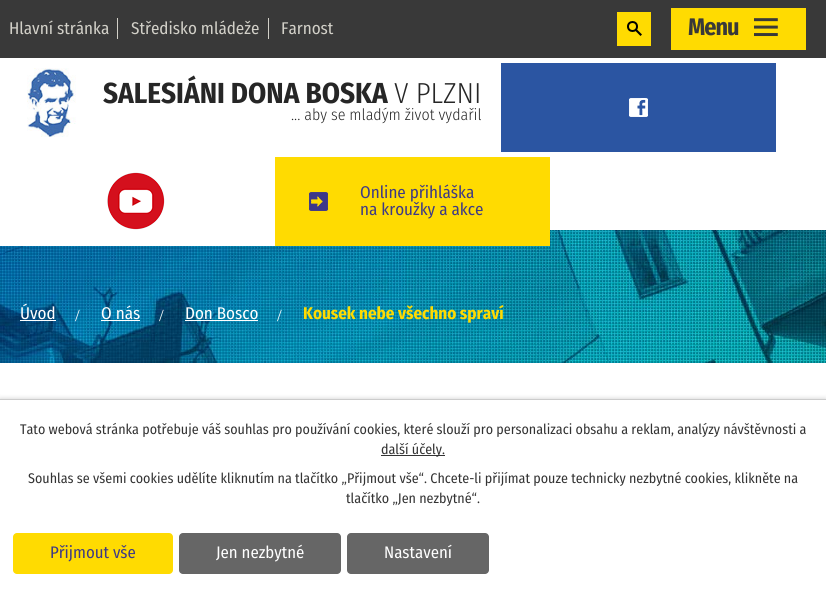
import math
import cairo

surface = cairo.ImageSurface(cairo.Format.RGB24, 826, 598)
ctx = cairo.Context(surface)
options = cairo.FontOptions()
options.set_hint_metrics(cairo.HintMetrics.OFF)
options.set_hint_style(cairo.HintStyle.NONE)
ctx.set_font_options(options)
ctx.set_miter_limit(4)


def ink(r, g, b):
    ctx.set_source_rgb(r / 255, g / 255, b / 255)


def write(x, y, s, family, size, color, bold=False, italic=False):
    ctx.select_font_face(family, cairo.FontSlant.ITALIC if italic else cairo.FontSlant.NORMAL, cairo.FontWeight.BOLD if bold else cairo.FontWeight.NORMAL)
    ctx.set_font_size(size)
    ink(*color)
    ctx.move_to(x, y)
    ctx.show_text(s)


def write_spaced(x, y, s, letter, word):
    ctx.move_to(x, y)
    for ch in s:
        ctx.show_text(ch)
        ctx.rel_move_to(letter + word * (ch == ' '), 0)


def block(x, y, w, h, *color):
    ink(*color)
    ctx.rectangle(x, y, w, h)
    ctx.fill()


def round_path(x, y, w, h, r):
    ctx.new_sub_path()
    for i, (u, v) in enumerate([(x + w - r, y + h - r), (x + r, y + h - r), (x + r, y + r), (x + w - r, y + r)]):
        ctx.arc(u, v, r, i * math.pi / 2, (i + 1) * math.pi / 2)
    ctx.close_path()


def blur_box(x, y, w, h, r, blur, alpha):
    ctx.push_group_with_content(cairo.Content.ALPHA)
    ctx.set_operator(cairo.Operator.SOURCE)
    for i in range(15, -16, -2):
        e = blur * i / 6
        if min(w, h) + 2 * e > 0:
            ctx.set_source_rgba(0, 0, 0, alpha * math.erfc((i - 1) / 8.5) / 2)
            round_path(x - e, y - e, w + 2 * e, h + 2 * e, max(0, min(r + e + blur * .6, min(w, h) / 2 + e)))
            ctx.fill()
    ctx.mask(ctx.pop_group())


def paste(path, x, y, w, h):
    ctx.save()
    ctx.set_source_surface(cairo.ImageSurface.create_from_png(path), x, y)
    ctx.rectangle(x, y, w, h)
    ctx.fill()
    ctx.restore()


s1 = dict(family="Fira Sans Condensed", size=17, color=(210, 208, 200))
s2 = dict(family="Fira Sans Condensed", size=29, color=(38, 38, 38), bold=True)
s3 = dict(family="Fira Sans Condensed Light", size=29, color=(38, 38, 38))
s4 = dict(family="Fira Sans Condensed Light", size=15.9, color=(38, 38, 38))
s5 = dict(family="Fira Sans Condensed", size=17, color=(62, 58, 134))
s6 = dict(family="Fira Sans Condensed", size=17, color=(255, 255, 255))
s7 = dict(family="Liberation Serif", size=17, color=(255, 255, 255))
s8 = dict(family="Fira Sans Condensed", size=17, color=(255, 219, 1), bold=True)
s9 = dict(family="Fira Sans Condensed", size=14, color=(51, 51, 51))
s10 = dict(family="Fira Sans Condensed", size=16.75, color=(62, 58, 134))
s11 = dict(family="Fira Sans Condensed", size=16.75, color=(255, 255, 255))

ink(255, 255, 255)
ctx.paint()
block(0, 0, 826, 58, 57, 57, 57)
write(9, 34, "Hlavní stránka", **s1)
block(117, 18, 1, 21, 210, 208, 200)
write(131, 34, "Středisko mládeže", **s1)
block(268, 18, 1, 21, 210, 208, 200)
write(281, 34, "Farnost", **s1)
block(617, 12, 34, 34, 255, 219, 1)
ctx.new_path()
ctx.arc(632.5, 26.5, 4.5, 0, 2 * math.pi)
ink(0, 0, 0)
ctx.stroke()
ctx.new_path()
ctx.move_to(636.5, 29)
ctx.line_to(642, 34.5)
ctx.line_to(640.5, 36)
ctx.line_to(635, 30.5)
ctx.close_path()
ctx.fill()
paste("pic1.png", 27, 68, 49, 69)
write(103, 103, "SALESIÁNI DONA BOSKA", **s2)
write(394, 103, "V PLZNI", **s3)
write(291, 120, "... aby se mladým život vydařil", **s4)
block(501, 63, 275, 89, 43, 85, 162)
paste("pic2.png", 629, 98, 19, 19)
paste("pic6.png", 0, 230, 826, 133)
block(0, 230, 275, 16, 255, 255, 255)
paste("pic3.png", 107, 172, 58, 58)
block(275, 157, 275, 89, 255, 219, 1)
paste("pic4.png", 309, 192, 19, 19)
write(360, 198, "Online přihláška", **s5)
write(360, 215, "na kroužky a akce", **s5)
block(671, 8, 135, 42, 255, 219, 1)
ctx.select_font_face("Fira Sans Condensed", cairo.FontSlant.NORMAL, cairo.FontWeight.BOLD)
ctx.set_font_size(24)
ink(57, 57, 57)
write_spaced(688, 35, "Menu", -1, 0)
paste("pic5.png", 754, 18, 24, 19)
write(20, 319, "Úvod", **s6)
block(20, 320, 36, 1, 255, 255, 255)
write(75, 321, "/", **s7)
write(101, 319, "O nás", **s6)
block(101, 320, 39, 1, 255, 255, 255)
write(159, 321, "/", **s7)
write(185, 319, "Don Bosco", **s6)
block(185, 320, 73, 1, 255, 255, 255)
write(277, 321, "/", **s7)
write(303, 319, "Kousek nebe všechno spraví", **s8)
ink(0, 0, 0)
blur_box(0, 399, 826, 199, 0, 2.5, 0.2)
block(0, 400, 826, 198, 255, 255, 255)
block(0, 399, 826, 1, 204, 204, 204)
write(20, 434, "Tato webová stránka potřebuje váš souhlas pro používání cookies, které slouží pro personalizaci obsahu a reklam, analýzy návštěvnosti a", **s9)
block(381, 455, 64, 1, 51, 51, 51)
write(381, 454, "další účely.", **s9)
write(28, 483, "Souhlas se všemi cookies udělíte kliknutím na tlačítko „Přijmout vše“. Chcete-li přijímat pouze technicky nezbytné cookies, klikněte na", **s9)
write(346, 503, "tlačítko „Jen nezbytné“.", **s9)
ink(255, 219, 1)
round_path(13, 533, 160, 41, 4)
ctx.fill()
write(50, 558, "Přijmout vše", **s10)
ink(102, 102, 102)
round_path(179, 533, 162, 41, 4)
ctx.fill()
write(216, 558, "Jen nezbytné", **s11)
ink(102, 102, 102)
round_path(347, 533, 142, 41, 4)
ctx.fill()
write(384, 558, "Nastavení", **s11)
surface.write_to_png("screenshot.png")
